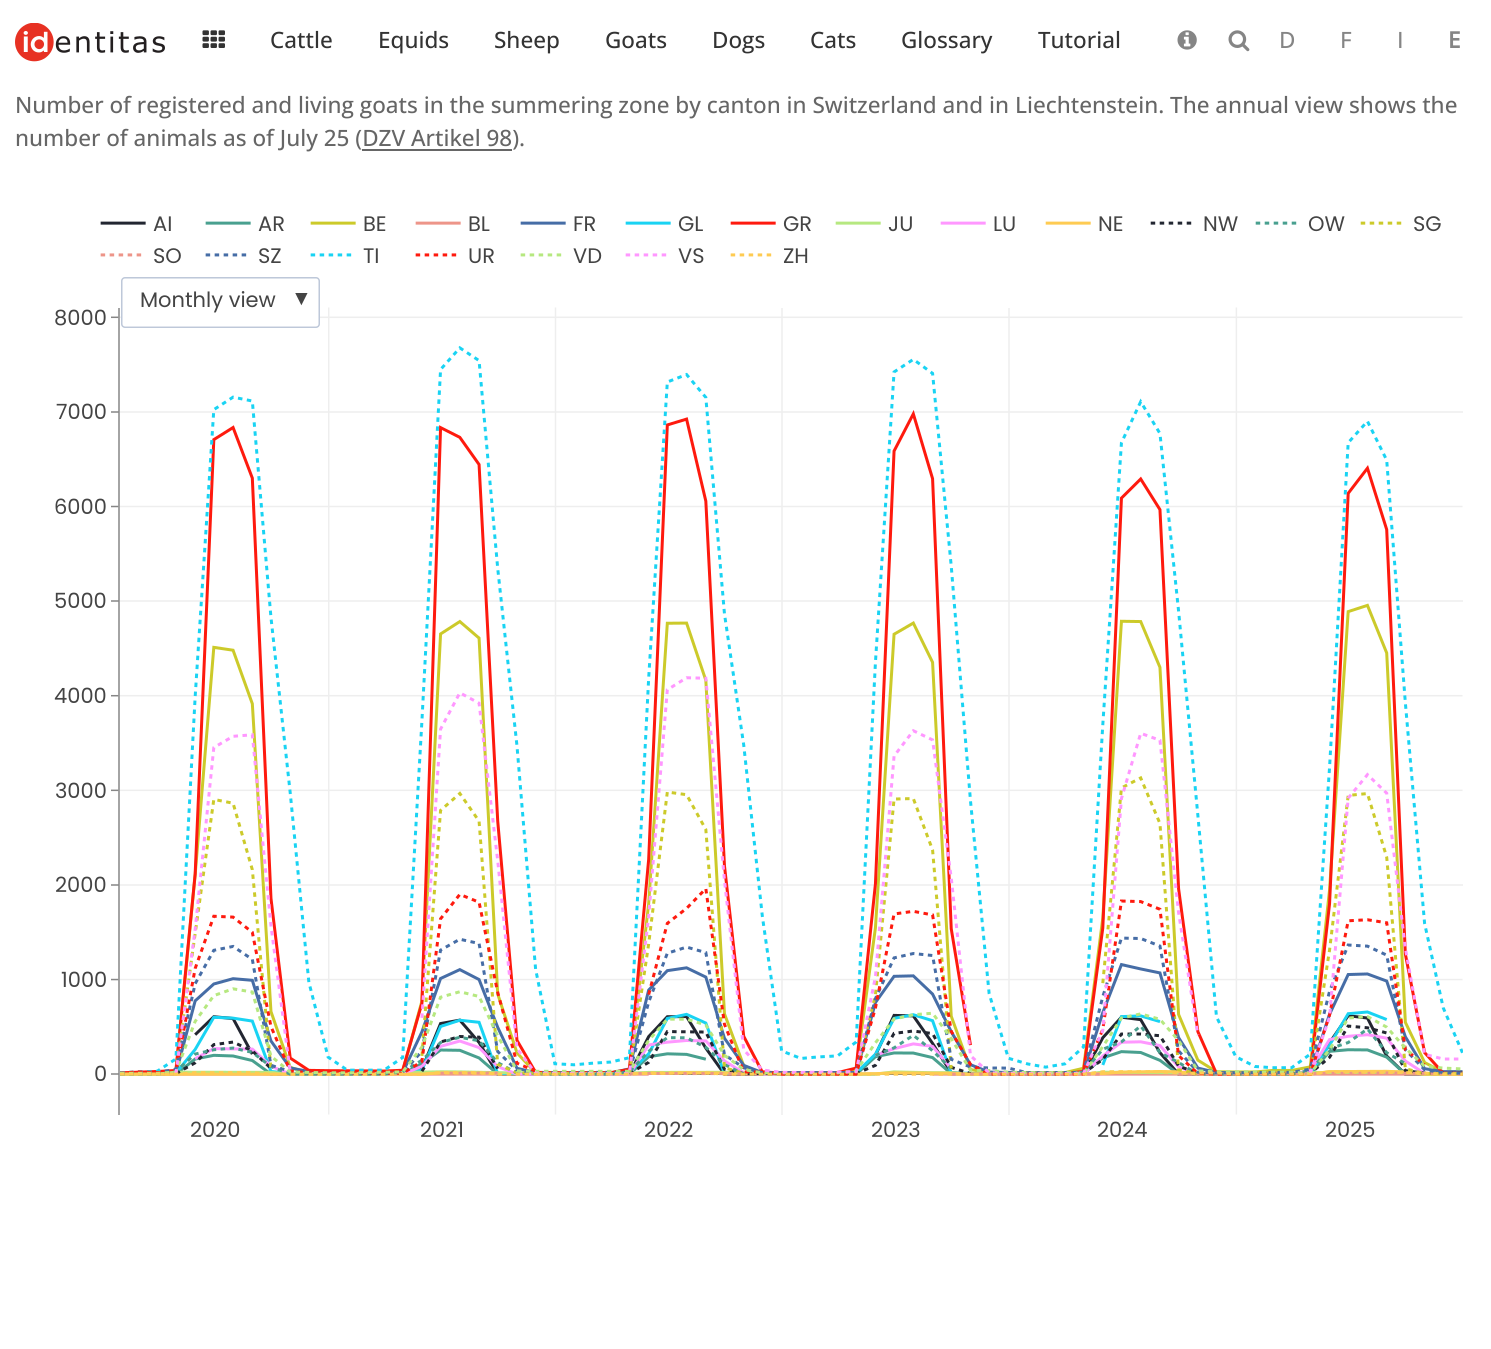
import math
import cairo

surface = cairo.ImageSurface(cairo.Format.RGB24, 1491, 1349)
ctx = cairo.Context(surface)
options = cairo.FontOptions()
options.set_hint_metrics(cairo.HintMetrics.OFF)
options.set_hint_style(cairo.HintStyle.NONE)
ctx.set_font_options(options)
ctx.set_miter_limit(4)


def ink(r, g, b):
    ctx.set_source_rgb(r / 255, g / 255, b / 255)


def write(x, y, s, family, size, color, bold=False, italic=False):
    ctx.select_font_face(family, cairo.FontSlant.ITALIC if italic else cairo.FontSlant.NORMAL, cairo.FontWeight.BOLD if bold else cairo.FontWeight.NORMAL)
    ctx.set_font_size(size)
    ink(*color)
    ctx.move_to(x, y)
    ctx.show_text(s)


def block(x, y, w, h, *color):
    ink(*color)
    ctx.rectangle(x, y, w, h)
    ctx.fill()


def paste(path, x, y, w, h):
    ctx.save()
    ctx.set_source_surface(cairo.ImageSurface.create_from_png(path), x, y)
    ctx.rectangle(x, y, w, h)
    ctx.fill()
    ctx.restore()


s1 = dict(family="Open Sans Medium", size=22.5, color=(51, 51, 51))
s2 = dict(family="Open Sans Medium", size=22.5, color=(133, 133, 133))
s3 = dict(family="Open Sans", size=22.5, color=(133, 133, 133), bold=True)
s4 = dict(family="Open Sans Medium", size=22.5, color=(102, 102, 102))
s5 = dict(family="Poppins", size=21, color=(68, 68, 68))
s6 = dict(family="Liberation Sans", size=21, color=(68, 68, 68))

ink(255, 255, 255)
ctx.paint()
paste("pic1.png", 15, 23, 150, 39)
paste("pic2.png", 202, 30, 23, 18)
write(270, 48, "Cattle", **s1)
write(378, 48, "Equids", **s1)
write(494, 48, "Sheep", **s1)
write(605, 48, "Goats", **s1)
write(712, 48, "Dogs", **s1)
write(810, 48, "Cats", **s1)
write(901, 48, "Glossary", **s1)
write(1038, 48, "Tutorial", **s1)
paste("pic3.png", 1177, 30, 20, 20)
paste("pic4.png", 1228, 30, 22, 22)
write(1279, 48, "D", **s2)
write(1340, 48, "F", **s2)
write(1397, 48, "I", **s2)
write(1448, 48, "E", **s3)
write(15, 113, "Number of registered and living goats in the summering zone by canton in Switzerland and in Liechtenstein. The annual view shows the", **s4)
write(15, 146, "number of animals as of July 25 (DZV Artikel 98).", **s4)
block(362, 149, 150, 2, 102, 102, 102)
write(153, 231, "AI", **s5)
paste("pic6.png", 111, 307, 1352, 808)
write(54, 325, "8000", **s5)
paste("pic5.png", 100, 221, 1302, 107)
write(258, 231, "AR", **s5)
write(363, 231, "BE", **s5)
write(468, 231, "BL", **s5)
write(573, 231, "FR", **s5)
write(678, 231, "GL", **s5)
write(783, 231, "GR", **s5)
write(888, 231, "JU", **s5)
write(993, 231, "LU", **s5)
write(1098, 231, "NE", **s5)
write(1203, 231, "NW", **s5)
write(1308, 231, "OW", **s5)
write(1413, 231, "SG", **s5)
write(153, 263, "SO", **s5)
write(258, 263, "SZ", **s5)
write(363, 263, "TI", **s5)
write(468, 263, "UR", **s5)
write(573, 263, "VD", **s5)
write(678, 263, "VS", **s5)
write(783, 263, "ZH", **s5)
write(140, 307, "Monthly view", **s5)
write(291, 305, "▼", **s6)
write(56, 419, "7000", **s5)
write(54, 514, "6000", **s5)
write(54, 608, "5000", **s5)
write(54, 703, "4000", **s5)
write(55, 798, "3000", **s5)
write(55, 892, "2000", **s5)
write(61, 987, "1000", **s5)
write(94, 1081, "0", **s5)
write(190, 1137, "2020", **s5)
write(420, 1137, "2021", **s5)
write(644, 1137, "2022", **s5)
write(871, 1137, "2023", **s5)
write(1097, 1137, "2024", **s5)
write(1325, 1137, "2025", **s5)
surface.write_to_png("screenshot.png")
